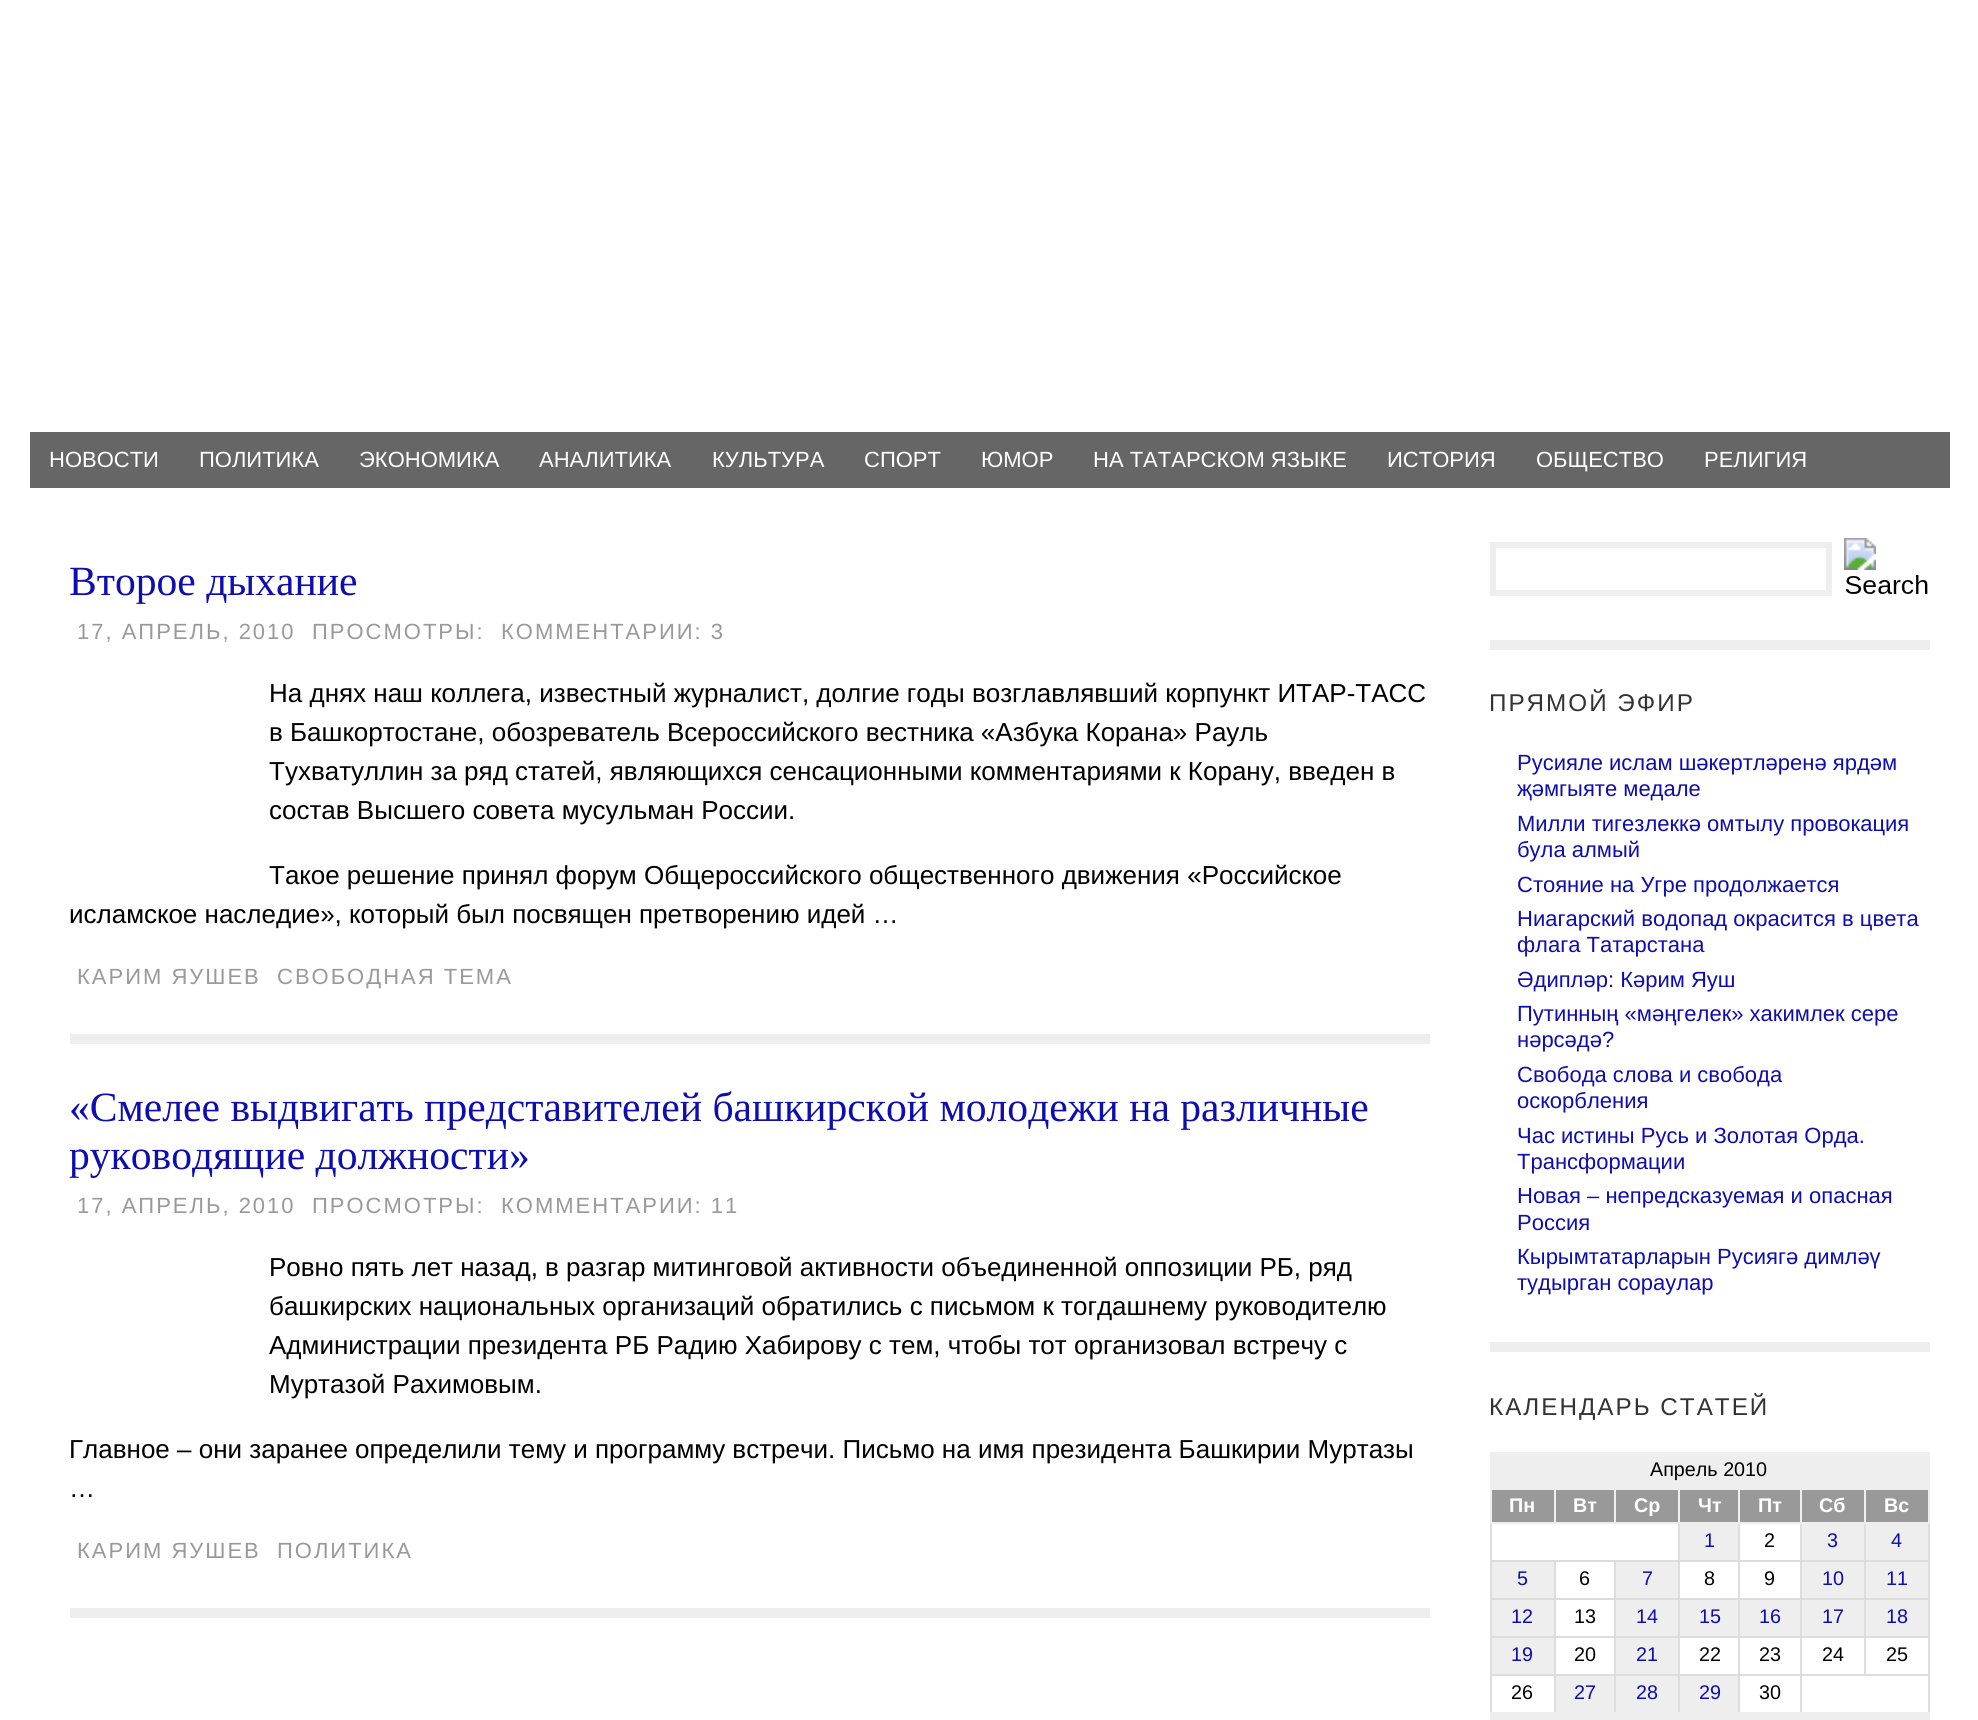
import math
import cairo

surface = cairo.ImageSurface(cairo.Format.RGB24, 1978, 1720)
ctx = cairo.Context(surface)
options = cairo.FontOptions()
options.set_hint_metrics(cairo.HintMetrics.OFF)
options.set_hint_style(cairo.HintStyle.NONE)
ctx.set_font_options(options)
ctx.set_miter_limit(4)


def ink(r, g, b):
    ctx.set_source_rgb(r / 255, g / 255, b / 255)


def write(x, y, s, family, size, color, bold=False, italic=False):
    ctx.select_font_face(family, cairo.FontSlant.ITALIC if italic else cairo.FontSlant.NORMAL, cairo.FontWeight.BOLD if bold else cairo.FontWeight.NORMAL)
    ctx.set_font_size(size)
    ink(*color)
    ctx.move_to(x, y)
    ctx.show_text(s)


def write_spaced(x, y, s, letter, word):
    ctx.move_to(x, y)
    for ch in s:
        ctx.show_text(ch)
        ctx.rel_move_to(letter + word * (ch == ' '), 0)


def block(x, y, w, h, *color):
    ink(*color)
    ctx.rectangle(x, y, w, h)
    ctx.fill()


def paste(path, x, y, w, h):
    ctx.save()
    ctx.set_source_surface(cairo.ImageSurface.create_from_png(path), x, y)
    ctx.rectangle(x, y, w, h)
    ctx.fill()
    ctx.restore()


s1 = dict(family="Liberation Sans", size=22, color=(255, 255, 255))
s2 = dict(family="Liberation Serif", size=41.6, color=(13, 13, 176))
s3 = dict(family="Liberation Sans", size=26, color=(0, 0, 0))
s4 = dict(family="Liberation Sans", size=22, color=(13, 13, 176))
s5 = dict(family="Liberation Sans", size=19.75, color=(0, 0, 0))
s6 = dict(family="Liberation Sans", size=19.75, color=(255, 255, 255), bold=True)
s7 = dict(family="Liberation Sans", size=19.75, color=(13, 13, 176))

ink(255, 255, 255)
ctx.paint()
block(30, 432, 1920, 56, 102, 102, 102)
write(49, 467, "НОВОСТИ", **s1)
write(199, 467, "ПОЛИТИКА", **s1)
write(359, 467, "ЭКОНОМИКА", **s1)
write(539, 467, "АНАЛИТИКА", **s1)
write(712, 467, "КУЛЬТУРА", **s1)
write(864, 467, "СПОРТ", **s1)
write(981, 467, "ЮМОР", **s1)
write(1093, 467, "НА ТАТАРСКОМ ЯЗЫКЕ", **s1)
write(1387, 467, "ИСТОРИЯ", **s1)
write(1536, 467, "ОБЩЕСТВО", **s1)
write(1704, 467, "РЕЛИГИЯ", **s1)
block(70, 1034, 1360, 10, 238, 238, 238)
write(69, 595, "Второе дыхание", **s2)
ctx.select_font_face("Liberation Sans")
ctx.set_font_size(22)
ink(153, 153, 153)
write_spaced(77, 639, "17, АПРЕЛЬ, 2010", 2, 0)
write_spaced(312, 639, "ПРОСМОТРЫ:", 2, 0)
write_spaced(501, 639, "КОММЕНТАРИИ: 3", 2, 0)
write(269, 702, "На днях наш коллега, известный журналист, долгие годы возглавлявший корпункт ИТАР-ТАСС", **s3)
write(269, 741, "в Башкортостане, обозреватель Всероссийского вестника «Азбука Корана» Рауль", **s3)
write(269, 780, "Тухватуллин за ряд статей, являющихся сенсационными комментариями к Корану, введен в", **s3)
write(269, 819, "состав Высшего совета мусульман России.", **s3)
write(269, 884, "Такое решение принял форум Общероссийского общественного движения «Российское", **s3)
write(69, 923, "исламское наследие», который был посвящен претворению идей …", **s3)
ctx.set_font_size(22)
ink(153, 153, 153)
write_spaced(77, 984, "КАРИМ ЯУШЕВ", 2, 0)
write_spaced(277, 984, "СВОБОДНАЯ ТЕМА", 2, 0)
block(70, 1608, 1360, 10, 238, 238, 238)
write(69, 1121, "«Смелее выдвигать представителей башкирской молодежи на различные", **s2)
write(69, 1169, "руководящие должности»", **s2)
ctx.select_font_face("Liberation Sans")
ctx.set_font_size(22)
ink(153, 153, 153)
write_spaced(77, 1213, "17, АПРЕЛЬ, 2010", 2, 0)
write_spaced(312, 1213, "ПРОСМОТРЫ:", 2, 0)
write_spaced(501, 1213, "КОММЕНТАРИИ: 11", 2, 0)
write(269, 1276, "Ровно пять лет назад, в разгар митинговой активности объединенной оппозиции РБ, ряд", **s3)
write(269, 1315, "башкирских национальных организаций обратились с письмом к тогдашнему руководителю", **s3)
write(269, 1354, "Администрации президента РБ Радию Хабирову с тем, чтобы тот организовал встречу с", **s3)
write(269, 1393, "Муртазой Рахимовым.", **s3)
write(69, 1458, "Главное – они заранее определили тему и программу встречи. Письмо на имя президента Башкирии Муртазы", **s3)
write(69, 1497, "…", **s3)
ctx.set_font_size(22)
ink(153, 153, 153)
write_spaced(77, 1558, "КАРИМ ЯУШЕВ", 2, 0)
write_spaced(277, 1558, "ПОЛИТИКА", 2, 0)
block(1490, 640, 440, 10, 238, 238, 238)
ctx.rectangle(1493, 545, 336, 48)
ctx.set_line_width(6)
ctx.stroke()
paste("pic1.png", 1844, 538, 84, 56)
block(1490, 1342, 440, 10, 238, 238, 238)
ctx.set_font_size(24.25)
ink(51, 51, 51)
write_spaced(1489, 711, "ПРЯМОЙ ЭФИР", 2, 0)
write(1517, 770, "Русияле ислам шәкертләренә ярдәм", **s4)
write(1517, 796, "җәмгыяте медале", **s4)
write(1517, 831, "Милли тигезлеккә омтылу провокация", **s4)
write(1517, 857, "була алмый", **s4)
write(1517, 892, "Стояние на Угре продолжается", **s4)
write(1517, 926, "Ниагарский водопад окрасится в цвета", **s4)
write(1517, 952, "флага Татарстана", **s4)
write(1517, 987, "Әдипләр: Кәрим Яуш", **s4)
write(1517, 1021, "Путинның «мәңгелек» хакимлек сере", **s4)
write(1517, 1047, "нәрсәдә?", **s4)
write(1517, 1082, "Свобода слова и свобода", **s4)
write(1517, 1108, "оскорбления", **s4)
write(1517, 1143, "Час истины Русь и Золотая Орда.", **s4)
write(1517, 1169, "Трансформации", **s4)
write(1517, 1203, "Новая – непредсказуемая и опасная", **s4)
write(1517, 1230, "Россия", **s4)
write(1517, 1264, "Кырымтатарларын Русиягә димләү", **s4)
write(1517, 1290, "тудырган сораулар", **s4)
ctx.set_font_size(24.25)
ink(51, 51, 51)
write_spaced(1489, 1415, "КАЛЕНДАРЬ СТАТЕЙ", 2, 0)
block(1490, 1452, 440, 36, 238, 238, 238)
write(1650, 1476, "Апрель 2010", **s5)
block(1492, 1490, 62, 32, 153, 153, 153)
block(1864, 1488, 66, 2, 238, 238, 238)
block(1864, 1560, 66, 2, 221, 221, 221)
block(1864, 1598, 66, 2, 221, 221, 221)
block(1864, 1636, 66, 2, 221, 221, 221)
block(1800, 1674, 130, 2, 221, 221, 221)
block(1928, 1674, 2, 40, 221, 221, 221)
block(1928, 1636, 2, 40, 221, 221, 221)
block(1928, 1598, 2, 40, 221, 221, 221)
block(1928, 1522, 2, 78, 221, 221, 221)
block(1928, 1488, 2, 36, 238, 238, 238)
block(1864, 1636, 2, 40, 221, 221, 221)
block(1800, 1636, 66, 2, 221, 221, 221)
block(1864, 1598, 2, 40, 221, 221, 221)
block(1800, 1598, 66, 2, 221, 221, 221)
block(1864, 1560, 2, 40, 221, 221, 221)
block(1800, 1560, 66, 2, 221, 221, 221)
block(1864, 1522, 2, 40, 221, 221, 221)
block(1864, 1522, 66, 2, 238, 238, 238)
block(1864, 1488, 2, 36, 238, 238, 238)
block(1800, 1488, 66, 2, 238, 238, 238)
block(1800, 1674, 2, 40, 221, 221, 221)
block(1738, 1674, 64, 2, 221, 221, 221)
block(1800, 1636, 2, 40, 221, 221, 221)
block(1738, 1636, 64, 2, 221, 221, 221)
block(1800, 1598, 2, 40, 221, 221, 221)
block(1738, 1598, 64, 2, 221, 221, 221)
block(1800, 1560, 2, 40, 221, 221, 221)
block(1738, 1560, 64, 2, 221, 221, 221)
block(1800, 1522, 2, 40, 221, 221, 221)
block(1800, 1522, 66, 2, 238, 238, 238)
block(1800, 1488, 2, 36, 238, 238, 238)
block(1738, 1488, 64, 2, 238, 238, 238)
block(1738, 1674, 2, 40, 221, 221, 221)
block(1678, 1674, 62, 2, 221, 221, 221)
block(1738, 1636, 2, 40, 221, 221, 221)
block(1678, 1636, 62, 2, 221, 221, 221)
block(1738, 1598, 2, 40, 221, 221, 221)
block(1678, 1598, 62, 2, 221, 221, 221)
block(1738, 1560, 2, 40, 221, 221, 221)
block(1678, 1560, 62, 2, 221, 221, 221)
block(1738, 1522, 2, 40, 221, 221, 221)
block(1738, 1522, 64, 2, 238, 238, 238)
block(1738, 1488, 2, 36, 238, 238, 238)
block(1678, 1488, 62, 2, 238, 238, 238)
block(1678, 1674, 2, 40, 221, 221, 221)
block(1614, 1674, 66, 2, 221, 221, 221)
block(1678, 1636, 2, 40, 221, 221, 221)
block(1614, 1636, 66, 2, 221, 221, 221)
block(1678, 1598, 2, 40, 221, 221, 221)
block(1614, 1598, 66, 2, 221, 221, 221)
block(1678, 1560, 2, 40, 221, 221, 221)
block(1614, 1560, 66, 2, 221, 221, 221)
block(1678, 1522, 2, 40, 221, 221, 221)
block(1678, 1522, 62, 2, 238, 238, 238)
block(1678, 1488, 2, 36, 238, 238, 238)
block(1614, 1488, 66, 2, 238, 238, 238)
block(1614, 1522, 66, 2, 238, 238, 238)
block(1614, 1488, 2, 36, 238, 238, 238)
block(1554, 1488, 62, 2, 238, 238, 238)
block(1554, 1522, 62, 2, 238, 238, 238)
block(1554, 1488, 2, 36, 238, 238, 238)
block(1490, 1488, 66, 2, 238, 238, 238)
block(1614, 1674, 2, 40, 221, 221, 221)
block(1554, 1674, 62, 2, 221, 221, 221)
block(1614, 1636, 2, 40, 221, 221, 221)
block(1554, 1636, 62, 2, 221, 221, 221)
block(1614, 1598, 2, 40, 221, 221, 221)
block(1554, 1598, 62, 2, 221, 221, 221)
block(1614, 1560, 2, 40, 221, 221, 221)
block(1554, 1560, 62, 2, 221, 221, 221)
block(1554, 1674, 2, 40, 221, 221, 221)
block(1490, 1674, 66, 2, 221, 221, 221)
block(1554, 1636, 2, 40, 221, 221, 221)
block(1490, 1636, 66, 2, 221, 221, 221)
block(1554, 1598, 2, 40, 221, 221, 221)
block(1490, 1598, 66, 2, 221, 221, 221)
block(1554, 1560, 2, 40, 221, 221, 221)
block(1490, 1560, 66, 2, 221, 221, 221)
block(1490, 1674, 2, 40, 221, 221, 221)
block(1490, 1636, 2, 40, 221, 221, 221)
block(1490, 1598, 2, 40, 221, 221, 221)
block(1490, 1522, 2, 78, 221, 221, 221)
block(1490, 1522, 66, 2, 238, 238, 238)
block(1490, 1488, 2, 36, 238, 238, 238)
write(1509, 1512, "Пн", **s6)
block(1556, 1490, 58, 32, 153, 153, 153)
write(1573, 1512, "Вт", **s6)
block(1616, 1490, 62, 32, 153, 153, 153)
write(1634, 1512, "Ср", **s6)
block(1680, 1490, 58, 32, 153, 153, 153)
write(1698, 1512, "Чт", **s6)
block(1740, 1490, 60, 32, 153, 153, 153)
write(1758, 1512, "Пт", **s6)
block(1802, 1490, 62, 32, 153, 153, 153)
write(1819, 1512, "Сб", **s6)
block(1866, 1490, 62, 32, 153, 153, 153)
write(1884, 1512, "Вс", **s6)
block(1680, 1524, 58, 36, 238, 238, 238)
write(1704, 1547, "1", **s7)
write(1764, 1547, "2", **s5)
block(1802, 1524, 62, 36, 238, 238, 238)
write(1827, 1547, "3", **s7)
block(1866, 1524, 62, 36, 238, 238, 238)
write(1891, 1547, "4", **s7)
block(1492, 1562, 62, 36, 238, 238, 238)
write(1517, 1585, "5", **s7)
write(1579, 1585, "6", **s5)
block(1616, 1562, 62, 36, 238, 238, 238)
write(1642, 1585, "7", **s7)
write(1704, 1585, "8", **s5)
write(1764, 1585, "9", **s5)
block(1802, 1562, 62, 36, 238, 238, 238)
write(1822, 1585, "10", **s7)
block(1866, 1562, 62, 36, 238, 238, 238)
write(1886, 1585, "11", **s7)
block(1492, 1600, 62, 36, 238, 238, 238)
write(1511, 1623, "12", **s7)
write(1574, 1623, "13", **s5)
block(1616, 1600, 62, 36, 238, 238, 238)
write(1636, 1623, "14", **s7)
block(1680, 1600, 58, 36, 238, 238, 238)
write(1699, 1623, "15", **s7)
block(1740, 1600, 60, 36, 238, 238, 238)
write(1759, 1623, "16", **s7)
block(1802, 1600, 62, 36, 238, 238, 238)
write(1822, 1623, "17", **s7)
block(1866, 1600, 62, 36, 238, 238, 238)
write(1886, 1623, "18", **s7)
block(1492, 1638, 62, 36, 238, 238, 238)
write(1511, 1661, "19", **s7)
write(1574, 1661, "20", **s5)
block(1616, 1638, 62, 36, 238, 238, 238)
write(1636, 1661, "21", **s7)
write(1699, 1661, "22", **s5)
write(1759, 1661, "23", **s5)
write(1822, 1661, "24", **s5)
write(1886, 1661, "25", **s5)
write(1511, 1699, "26", **s5)
block(1556, 1676, 58, 36, 238, 238, 238)
write(1574, 1699, "27", **s7)
block(1616, 1676, 62, 36, 238, 238, 238)
write(1636, 1699, "28", **s7)
block(1680, 1676, 58, 36, 238, 238, 238)
write(1699, 1699, "29", **s7)
write(1759, 1699, "30", **s5)
block(1490, 1712, 440, 2, 238, 238, 238)
block(1928, 1712, 2, 8, 238, 238, 238)
block(1490, 1714, 438, 6, 238, 238, 238)
surface.write_to_png("screenshot.png")
